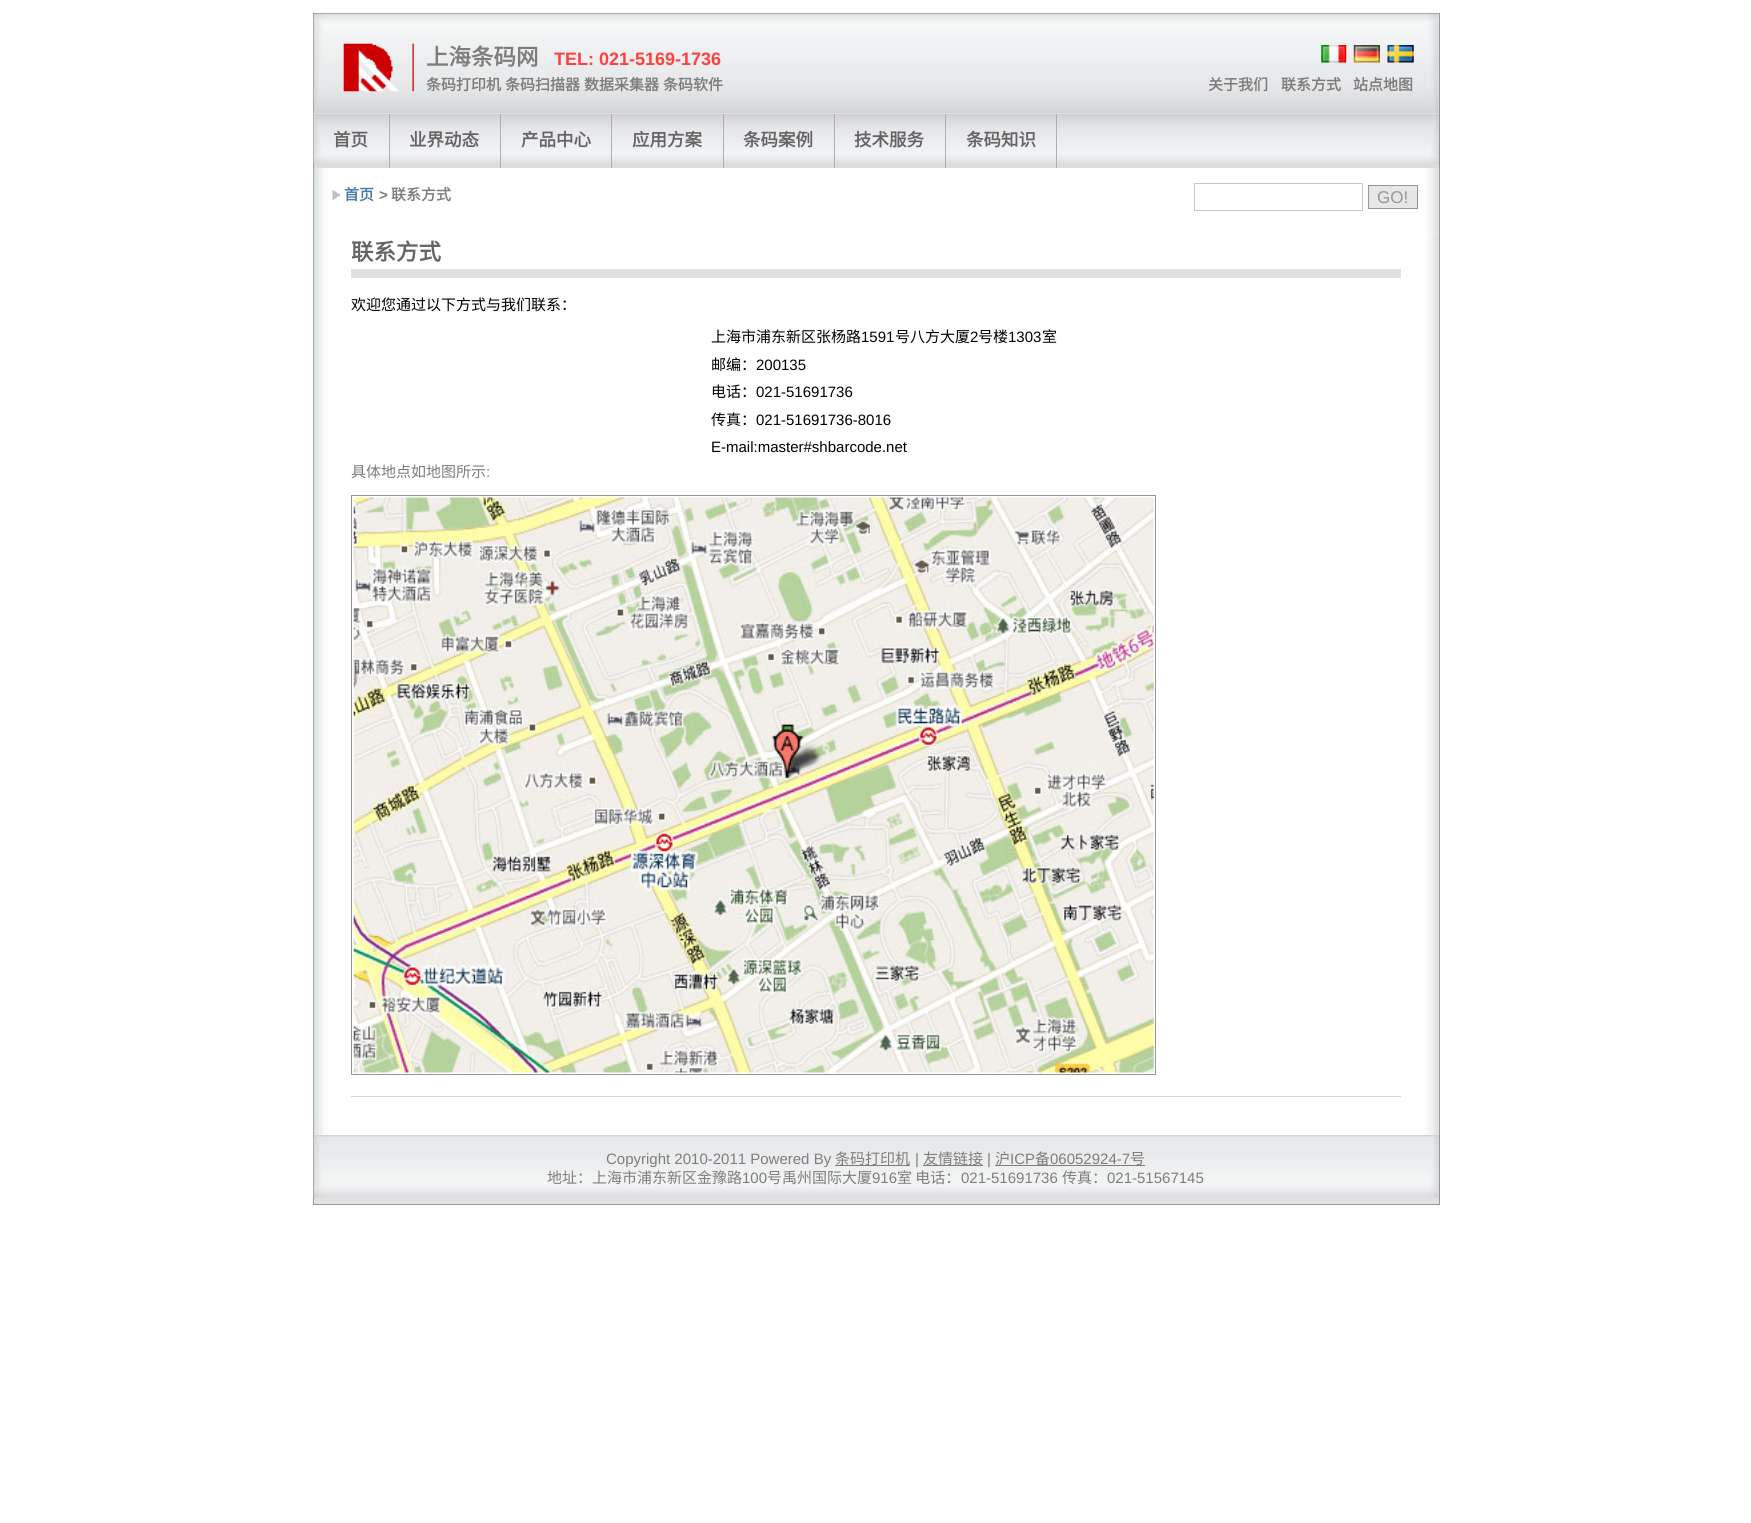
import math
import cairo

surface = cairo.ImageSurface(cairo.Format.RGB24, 1751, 1523)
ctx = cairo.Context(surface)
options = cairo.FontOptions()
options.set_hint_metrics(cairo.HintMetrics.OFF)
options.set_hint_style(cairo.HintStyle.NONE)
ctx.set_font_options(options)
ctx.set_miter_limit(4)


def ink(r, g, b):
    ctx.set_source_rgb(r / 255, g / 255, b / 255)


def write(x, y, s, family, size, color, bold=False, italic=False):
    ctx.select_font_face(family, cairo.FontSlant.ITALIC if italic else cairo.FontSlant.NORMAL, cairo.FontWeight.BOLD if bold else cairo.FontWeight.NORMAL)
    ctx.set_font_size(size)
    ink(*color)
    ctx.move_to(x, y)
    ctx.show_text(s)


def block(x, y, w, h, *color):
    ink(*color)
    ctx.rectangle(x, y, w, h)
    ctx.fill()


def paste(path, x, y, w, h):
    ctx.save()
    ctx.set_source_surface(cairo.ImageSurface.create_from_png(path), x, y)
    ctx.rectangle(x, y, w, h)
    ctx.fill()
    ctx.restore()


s1 = dict(family="Noto Sans CJK SC", size=22.5, color=(125, 125, 125), bold=True)
s2 = dict(family="Liberation Sans", size=18, color=(255, 64, 64), bold=True)
s3 = dict(family="Noto Sans CJK SC", size=15, color=(125, 125, 125), bold=True)
s4 = dict(family="Noto Sans CJK SC", size=17.5, color=(100, 100, 100), bold=True)
s5 = dict(family="Noto Sans CJK SC", size=15, color=(70, 122, 167), bold=True)
s6 = dict(family="Liberation Sans", size=15, color=(125, 125, 125), bold=True)
s7 = dict(family="Liberation Sans", size=17, color=(150, 150, 150))
s8 = dict(family="Noto Sans CJK SC", size=22.5, color=(100, 100, 100), bold=True)
s9 = dict(family="Noto Sans CJK SC", size=15, color=(0, 0, 0))
s10 = dict(family="Liberation Sans", size=15, color=(0, 0, 0))
s11 = dict(family="Noto Sans CJK SC", size=15, color=(125, 125, 125))
s12 = dict(family="Liberation Sans", size=15, color=(125, 125, 125))

ink(255, 255, 255)
ctx.paint()
ctx.rectangle(313.5, 13.5, 1126, 1191)
ink(150, 150, 150)
ctx.set_line_width(1)
ctx.stroke()
paste("pic1.png", 313, 13, 1126, 101)
paste("pic2.png", 343, 43, 71, 49)
write(426, 65, "上海条码网", **s1)
write(554, 65, "TEL: 021-5169-1736", **s2)
write(426, 90, "条码打印机", **s3)
write(505, 90, "条码扫描器", **s3)
write(584, 90, "数据采集器", **s3)
write(663, 90, "条码软件", **s3)
paste("pic3.png", 1321, 45, 26, 18)
paste("pic4.png", 1353, 45, 27, 18)
paste("pic5.png", 1387, 45, 27, 18)
write(1208, 90, "关于我们", **s3)
write(1281, 90, "联系方式", **s3)
write(1353, 90, "站点地图", **s3)
paste("pic6.png", 313, 113, 1126, 51)
paste("pic8.png", 313, 167, 1126, 67)
block(314, 114, 1125, 54, 220, 220, 220)
paste("pic7.png", 313, 113, 1126, 51)
block(389, 114, 1, 54, 175, 175, 175)
write(333, 146, "首页", **s4)
block(500, 114, 1, 54, 175, 175, 175)
write(409, 146, "业界动态", **s4)
block(611, 114, 1, 54, 175, 175, 175)
write(521, 146, "产品中心", **s4)
block(723, 114, 1, 54, 175, 175, 175)
write(632, 146, "应用方案", **s4)
block(834, 114, 1, 54, 175, 175, 175)
write(743, 146, "条码案例", **s4)
block(945, 114, 1, 54, 175, 175, 175)
write(854, 146, "技术服务", **s4)
block(1056, 114, 1, 54, 175, 175, 175)
write(966, 146, "条码知识", **s4)
paste("pic9.png", 332, 190, 8, 10)
write(344, 200, "首页", **s5)
write(379, 200, ">", **s6)
write(391, 200, "联系方式", **s3)
ctx.rectangle(1194.5, 183.5, 168, 27)
ink(200, 200, 200)
ctx.stroke()
ink(230, 230, 230)
ctx.rectangle(1368.5, 185.5, 49, 23)
ctx.fill_preserve()
ink(150, 150, 150)
ctx.stroke()
write(1377, 203, "GO!", **s7)
paste("pic10.png", 313, 234, 1126, 901)
block(351, 269, 1050, 9, 225, 225, 225)
write(351, 260, "联系方式", **s8)
write(351, 310, "欢迎您通过以下方式与我们联系：", **s9)
write(711, 342, "上海市浦东新区张杨路", **s9)
write(861, 342, "1591", **s10)
write(895, 342, "号八方大厦", **s9)
write(970, 342, "2", **s10)
write(978, 342, "号楼", **s9)
write(1008, 342, "1303", **s10)
write(1042, 342, "室", **s9)
write(711, 370, "邮编：", **s9)
write(756, 370, "200135", **s10)
write(711, 397, "电话：", **s9)
write(756, 397, "021-51691736", **s10)
write(711, 425, "传真：", **s9)
write(756, 425, "021-51691736-8016", **s10)
write(711, 452, "E-mail:master#shbarcode.net", **s10)
write(351, 477, "具体地点如地图所示", **s11)
write(486, 477, ":", **s12)
ctx.rectangle(351.5, 495.5, 804, 579)
ink(150, 150, 150)
ctx.stroke()
paste("pic11.png", 353, 497, 801, 576)
block(351, 1096, 1050, 1, 210, 210, 210)
block(314, 1135, 1125, 69, 225, 225, 225)
paste("pic12.png", 313, 1135, 1126, 63)
write(606, 1164, "Copyright 2010-2011 Powered By", **s12)
block(835, 1165, 75, 1, 125, 125, 125)
write(835, 1164, "条码打印机", **s11)
write(915, 1164, "|", **s12)
block(923, 1165, 60, 1, 125, 125, 125)
write(923, 1164, "友情链接", **s11)
write(987, 1164, "|", **s12)
block(995, 1165, 150, 1, 125, 125, 125)
write(995, 1164, "沪", **s11)
write(1010, 1164, "ICP", **s12)
write(1035, 1164, "备", **s11)
write(1050, 1164, "06052924-7", **s12)
write(1130, 1164, "号", **s11)
write(547, 1183, "地址：上海市浦东新区金豫路", **s11)
write(742, 1183, "100", **s12)
write(767, 1183, "号禹州国际大厦", **s11)
write(872, 1183, "916", **s12)
write(897, 1183, "室 电话：", **s11)
write(961, 1183, "021-51691736", **s12)
write(1062, 1183, "传真：", **s11)
write(1107, 1183, "021-51567145", **s12)
surface.write_to_png("screenshot.png")
